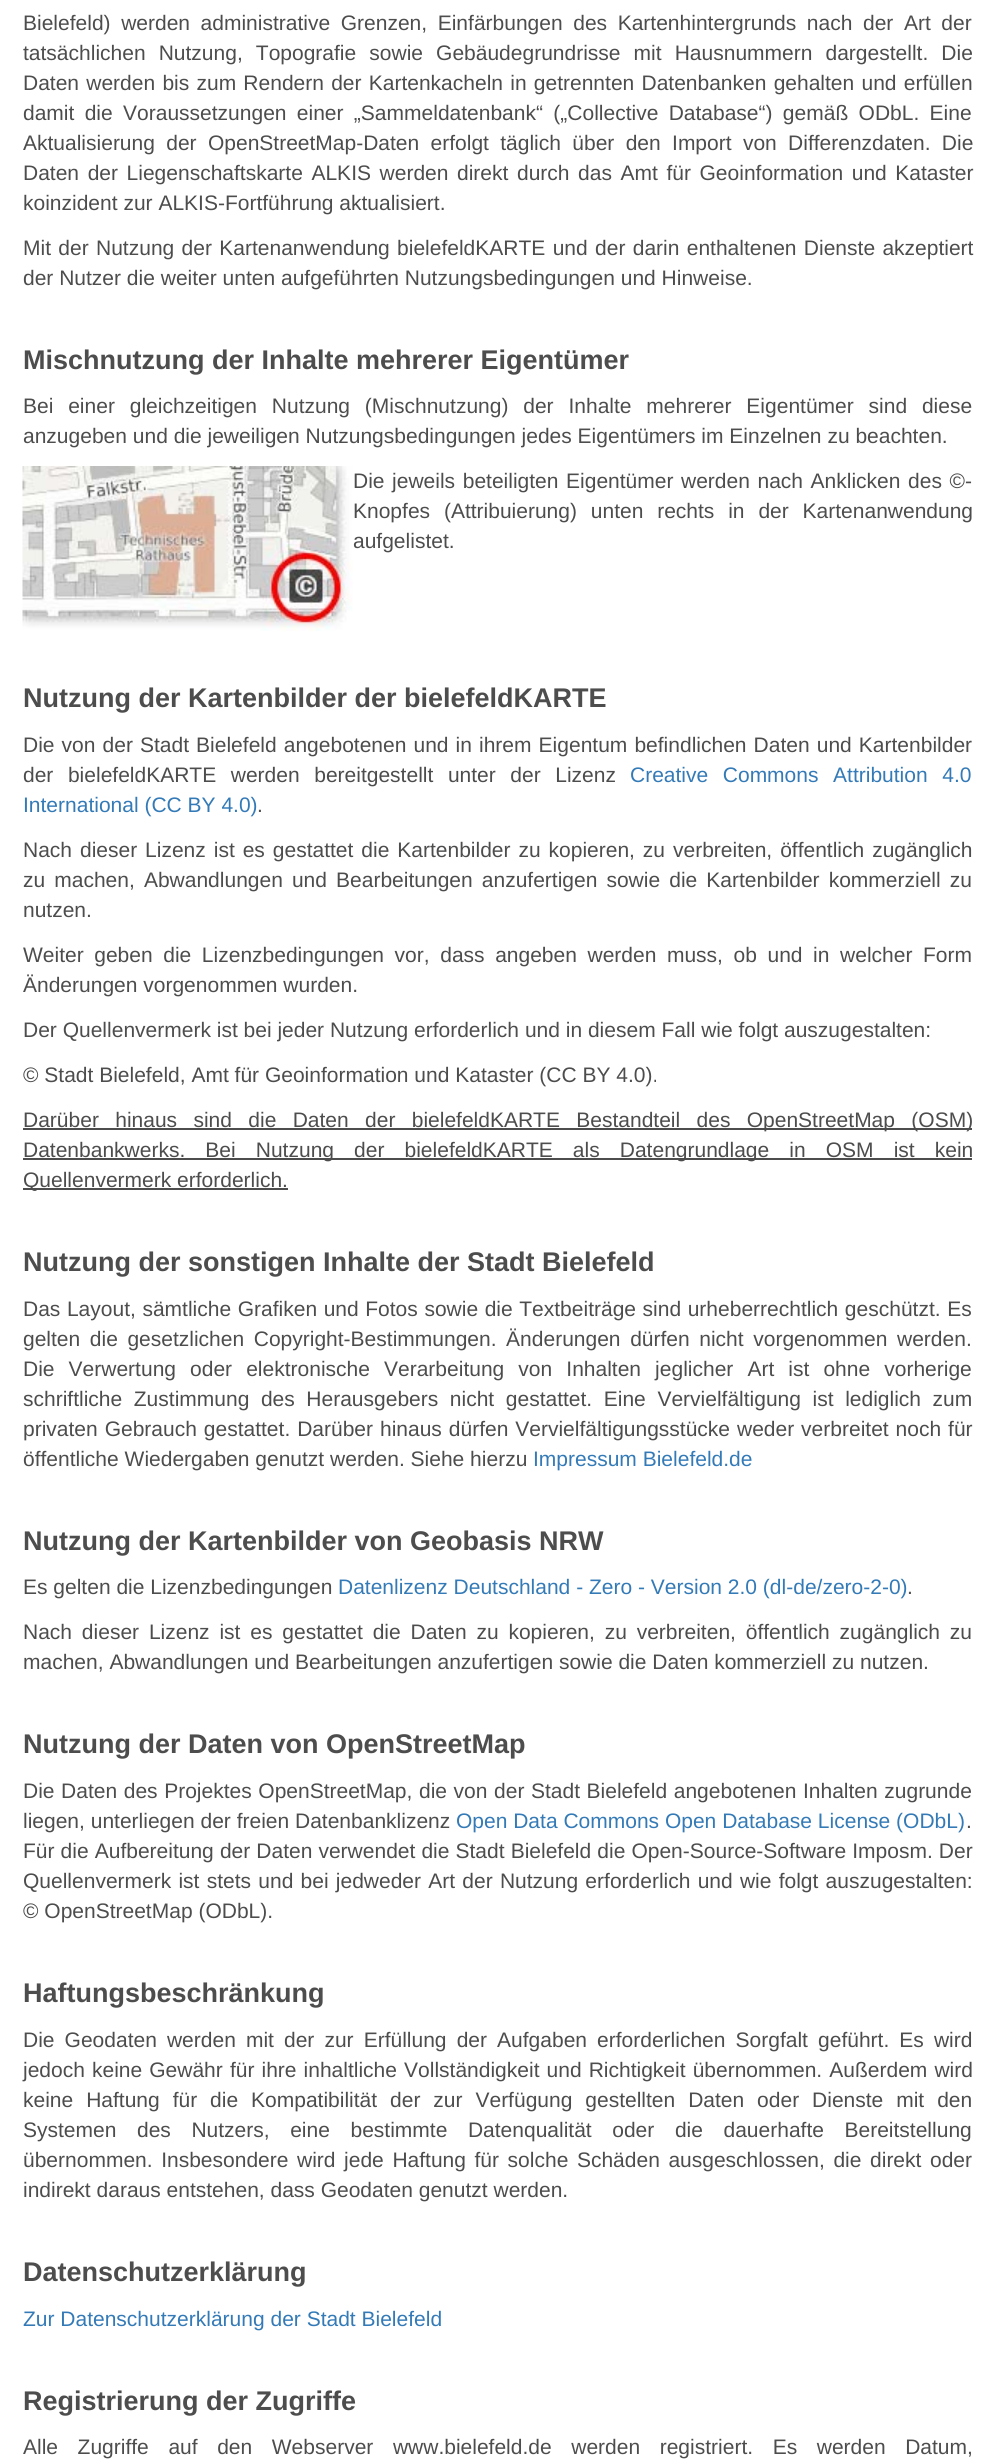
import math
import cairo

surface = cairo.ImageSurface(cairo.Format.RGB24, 994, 2461)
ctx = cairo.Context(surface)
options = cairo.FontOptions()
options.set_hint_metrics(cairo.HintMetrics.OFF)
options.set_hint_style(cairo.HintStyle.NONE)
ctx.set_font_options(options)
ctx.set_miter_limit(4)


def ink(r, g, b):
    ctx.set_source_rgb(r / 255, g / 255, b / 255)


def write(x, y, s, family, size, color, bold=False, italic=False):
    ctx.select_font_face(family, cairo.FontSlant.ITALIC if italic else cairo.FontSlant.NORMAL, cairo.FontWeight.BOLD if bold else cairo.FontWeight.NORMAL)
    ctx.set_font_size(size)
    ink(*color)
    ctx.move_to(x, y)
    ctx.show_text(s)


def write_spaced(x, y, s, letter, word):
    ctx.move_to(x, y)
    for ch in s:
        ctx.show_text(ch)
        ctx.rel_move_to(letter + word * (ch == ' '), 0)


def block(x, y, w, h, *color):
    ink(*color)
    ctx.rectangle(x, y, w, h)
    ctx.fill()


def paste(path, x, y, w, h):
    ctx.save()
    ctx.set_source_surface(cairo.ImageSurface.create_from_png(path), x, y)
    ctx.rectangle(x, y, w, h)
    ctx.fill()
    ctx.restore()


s1 = dict(family="Liberation Sans", size=21, color=(77, 77, 77))
s2 = dict(family="Liberation Sans", size=27, color=(77, 77, 77), bold=True)
s3 = dict(family="Liberation Sans", size=21, color=(51, 122, 183))

ink(255, 255, 255)
ctx.paint()
ctx.select_font_face("Liberation Sans")
ctx.set_font_size(21)
ink(77, 77, 77)
write_spaced(23, 30, "Bielefeld) werden administrative Grenzen, Einfärbungen des Kartenhintergrunds nach der Art der", 0, 4.75)
write_spaced(23, 60, "tatsächlichen Nutzung, Topografie sowie Gebäudegrundrisse mit Hausnummern dargestellt. Die", 0, 7.25)
write_spaced(23, 90, "Daten werden bis zum Rendern der Kartenkacheln in getrennten Datenbanken gehalten und erfüllen", 0, 1.4)
write_spaced(23, 120, "damit die Voraussetzungen einer „Sammeldatenbank“ („Collective Database“) gemäß ODbL. Eine", 0, 4.5)
write_spaced(23, 150, "Aktualisierung der OpenStreetMap-Daten erfolgt täglich über den Import von Differenzdaten. Die", 0, 5.5)
write_spaced(23, 180, "Daten der Liegenschaftskarte ALKIS werden direkt durch das Amt für Geoinformation und Kataster", 0, 2.75)
write(23, 210, "koinzident zur ALKIS-Fortführung aktualisiert.", **s1)
write_spaced(23, 255, "Mit der Nutzung der Kartenanwendung bielefeldKARTE und der darin enthaltenen Dienste akzeptiert", 0, 1.5)
write(23, 285, "der Nutzer die weiter unten aufgeführten Nutzungsbedingungen und Hinweise.", **s1)
write(23, 369, "Mischnutzung der Inhalte mehrerer Eigentümer", **s2)
ctx.select_font_face("Liberation Sans")
ctx.set_font_size(21)
write_spaced(23, 413, "Bei einer gleichzeitigen Nutzung (Mischnutzung) der Inhalte mehrerer Eigentümer sind diese", 0, 9)
write(23, 443, "anzugeben und die jeweiligen Nutzungsbedingungen jedes Eigentümers im Einzelnen zu beachten.", **s1)
paste("pic1.png", 22, 466, 331, 165)
write_spaced(353, 488, "Die jeweils beteiligten Eigentümer werden nach Anklicken des ©-", 0, 1.75)
write_spaced(353, 518, "Knopfes (Attribuierung) unten rechts in der Kartenanwendung", 0, 8)
write(353, 548, "aufgelistet.", **s1)
write(23, 707, "Nutzung der Kartenbilder der bielefeldKARTE", **s2)
ctx.select_font_face("Liberation Sans")
ctx.set_font_size(21)
write_spaced(23, 752, "Die von der Stadt Bielefeld angebotenen und in ihrem Eigentum befindlichen Daten und Kartenbilder", 0, 1.25)
write_spaced(23, 782, "der bielefeldKARTE werden bereitgestellt unter der Lizenz", 0, 8.75)
ink(51, 122, 183)
write_spaced(630, 782, "Creative Commons Attribution 4.0", 0, 8.75)
write(23, 812, "International (CC BY 4.0)", **s3)
write(257, 812, ".", **s1)
write_spaced(23, 857, "Nach dieser Lizenz ist es gestattet die Kartenbilder zu kopieren, zu verbreiten, öffentlich zugänglich", 0, 2.1)
write_spaced(23, 887, "zu machen, Abwandlungen und Bearbeitungen anzufertigen sowie die Kartenbilder kommerziell zu", 0, 3.25)
write(23, 917, "nutzen.", **s1)
write_spaced(23, 962, "Weiter geben die Lizenzbedingungen vor, dass angeben werden muss, ob und in welcher Form", 0, 4.75)
write(23, 992, "Änderungen vorgenommen wurden.", **s1)
write(23, 1037, "Der Quellenvermerk ist bei jeder Nutzung erforderlich und in diesem Fall wie folgt auszugestalten:", **s1)
write(23, 1082, "© Stadt Bielefeld, Amt für Geoinformation und Kataster (CC BY 4.0).", **s1)
block(23, 1128, 949, 2, 77, 77, 77)
write_spaced(23, 1127, "Darüber hinaus sind die Daten der bielefeldKARTE Bestandteil des OpenStreetMap (OSM)", 0, 10.5)
block(23, 1158, 949, 2, 77, 77, 77)
write_spaced(23, 1157, "Datenbankwerks. Bei Nutzung der bielefeldKARTE als Datengrundlage in OSM ist kein", 0, 14.25)
block(23, 1188, 265, 2, 77, 77, 77)
write(23, 1187, "Quellenvermerk erforderlich.", **s1)
write(23, 1271, "Nutzung der sonstigen Inhalte der Stadt Bielefeld", **s2)
ctx.select_font_face("Liberation Sans")
ctx.set_font_size(21)
write_spaced(23, 1316, "Das Layout, sämtliche Grafiken und Fotos sowie die Textbeiträge sind urheberrechtlich geschützt. Es", 0, 0.75)
write_spaced(23, 1346, "gelten die gesetzlichen Copyright-Bestimmungen. Änderungen dürfen nicht vorgenommen werden.", 0, 3.75)
write_spaced(23, 1376, "Die Verwertung oder elektronische Verarbeitung von Inhalten jeglicher Art ist ohne vorherige", 0, 8.25)
write_spaced(23, 1406, "schriftliche Zustimmung des Herausgebers nicht gestattet. Eine Vervielfältigung ist lediglich zum", 0, 5.75)
write_spaced(23, 1436, "privaten Gebrauch gestattet. Darüber hinaus dürfen Vervielfältigungsstücke weder verbreitet noch für", 0, 1.1)
write(23, 1466, "öffentliche Wiedergaben genutzt werden. Siehe hierzu", **s1)
write(533, 1466, "Impressum Bielefeld.de", **s3)
write(23, 1550, "Nutzung der Kartenbilder von Geobasis NRW", **s2)
write(23, 1594, "Es gelten die Lizenzbedingungen", **s1)
write(338, 1594, "Datenlizenz Deutschland - Zero - Version 2.0 (dl-de/zero-2-0)", **s3)
write(907, 1594, ".", **s1)
write_spaced(23, 1639, "Nach dieser Lizenz ist es gestattet die Daten zu kopieren, zu verbreiten, öffentlich zugänglich zu", 0, 4)
write(23, 1669, "machen, Abwandlungen und Bearbeitungen anzufertigen sowie die Daten kommerziell zu nutzen.", **s1)
write(23, 1753, "Nutzung der Daten von OpenStreetMap", **s2)
ctx.select_font_face("Liberation Sans")
ctx.set_font_size(21)
write_spaced(23, 1798, "Die Daten des Projektes OpenStreetMap, die von der Stadt Bielefeld angebotenen Inhalten zugrunde", 0, 0.75)
write(23, 1828, "liegen, unterliegen der freien Datenbanklizenz", **s1)
write(456, 1828, "Open Data Commons Open Database License (ODbL)", **s3)
write(966, 1828, ".", **s1)
write_spaced(23, 1858, "Für die Aufbereitung der Daten verwendet die Stadt Bielefeld die Open-Source-Software Imposm. Der", 0, 0.25)
write_spaced(23, 1888, "Quellenvermerk ist stets und bei jedweder Art der Nutzung erforderlich und wie folgt auszugestalten:", 0, 1.4)
write(23, 1918, "© OpenStreetMap (ODbL).", **s1)
write(23, 2002, "Haftungsbeschränkung", **s2)
ctx.select_font_face("Liberation Sans")
ctx.set_font_size(21)
write_spaced(23, 2047, "Die Geodaten werden mit der zur Erfüllung der Aufgaben erforderlichen Sorgfalt geführt. Es wird", 0, 4.25)
write_spaced(23, 2077, "jedoch keine Gewähr für ihre inhaltliche Vollständigkeit und Richtigkeit übernommen. Außerdem wird", 0, 1.25)
write_spaced(23, 2107, "keine Haftung für die Kompatibilität der zur Verfügung gestellten Daten oder Dienste mit den", 0, 7.1)
write_spaced(23, 2137, "Systemen des Nutzers, eine bestimmte Datenqualität oder die dauerhafte Bereitstellung", 0, 14.75)
write_spaced(23, 2167, "übernommen. Insbesondere wird jede Haftung für solche Schäden ausgeschlossen, die direkt oder", 0, 2.75)
write(23, 2197, "indirekt daraus entstehen, dass Geodaten genutzt werden.", **s1)
write(23, 2281, "Datenschutzerklärung", **s2)
write(23, 2326, "Zur Datenschutzerklärung der Stadt Bielefeld", **s3)
write(23, 2410, "Registrierung der Zugriffe", **s2)
ctx.select_font_face("Liberation Sans")
ctx.set_font_size(21)
write_spaced(23, 2454, "Alle Zugriffe auf den Webserver www.bielefeld.de werden registriert. Es werden Datum,", 0, 13.75)
surface.write_to_png("screenshot.png")
